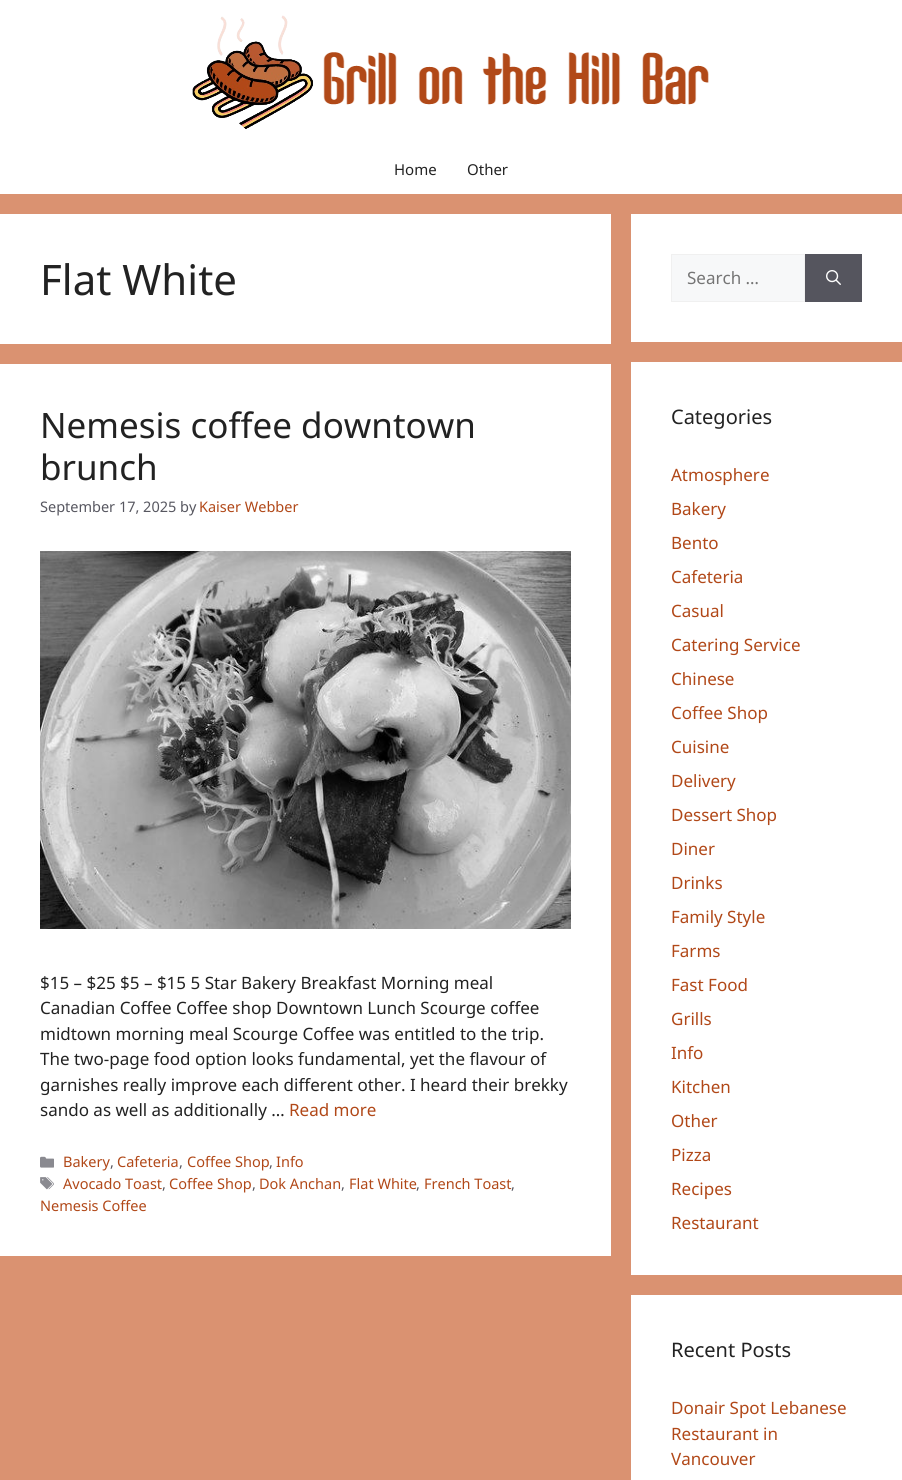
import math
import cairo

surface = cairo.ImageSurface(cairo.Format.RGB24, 902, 1480)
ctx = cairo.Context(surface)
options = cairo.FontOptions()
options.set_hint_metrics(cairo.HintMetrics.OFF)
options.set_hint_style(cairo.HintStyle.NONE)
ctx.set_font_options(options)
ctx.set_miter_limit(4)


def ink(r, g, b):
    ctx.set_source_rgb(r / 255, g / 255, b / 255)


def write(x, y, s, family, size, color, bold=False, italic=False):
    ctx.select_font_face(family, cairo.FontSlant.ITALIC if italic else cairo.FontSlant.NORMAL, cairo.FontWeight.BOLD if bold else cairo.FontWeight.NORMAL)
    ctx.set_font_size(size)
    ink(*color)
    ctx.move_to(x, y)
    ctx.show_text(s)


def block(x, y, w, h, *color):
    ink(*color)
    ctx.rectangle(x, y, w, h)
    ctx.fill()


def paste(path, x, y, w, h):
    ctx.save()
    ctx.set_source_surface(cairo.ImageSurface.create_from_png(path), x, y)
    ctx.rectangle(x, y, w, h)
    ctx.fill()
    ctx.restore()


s1 = dict(family="Noto Sans", size=15, color=(34, 34, 34))
s2 = dict(family="Noto Sans", size=42, color=(34, 34, 34))
s3 = dict(family="Noto Sans", size=35, color=(34, 34, 34))
s4 = dict(family="Noto Sans", size=14.5, color=(87, 87, 96))
s5 = dict(family="Noto Sans", size=14.5, color=(177, 72, 24))
s6 = dict(family="Noto Sans", size=17, color=(34, 34, 34))
s7 = dict(family="Noto Sans", size=17, color=(177, 72, 24))
s8 = dict(family="Noto Sans", size=17, color=(117, 117, 117))
s9 = dict(family="Noto Sans", size=20, color=(34, 34, 34))

ink(218, 146, 113)
ctx.paint()
block(0, 0, 902, 194, 255, 255, 255)
paste("pic1.png", 192, 15, 517, 114)
write(394, 175, "Home", **s1)
write(467, 175, "Other", **s1)
block(0, 214, 611, 130, 255, 255, 255)
write(40, 295, "Flat White", **s2)
block(0, 364, 611, 892, 255, 255, 255)
write(40, 438, "Nemesis coffee downtown", **s3)
write(40, 480, "brunch", **s3)
write(40, 512, "September 17, 2025 by", **s4)
write(199, 512, "Kaiser Webber", **s5)
paste("pic2.png", 40, 551, 531, 378)
write(40, 989, "$15 – $25 $5 – $15 5 Star Bakery Breakfast Morning meal", **s6)
write(40, 1014, "Canadian Coffee Coffee shop Downtown Lunch Scourge coffee", **s6)
write(40, 1040, "midtown morning meal Scourge Coffee was entitled to the trip.", **s6)
write(40, 1065, "The two-page food option looks fundamental, yet the flavour of", **s6)
write(40, 1091, "garnishes really improve each different other. I heard their brekky", **s6)
write(40, 1116, "sando as well as additionally …", **s6)
write(289, 1116, "Read more", **s7)
paste("pic3.png", 40, 1156, 14, 12)
write(63, 1167, "Bakery", **s5)
write(110, 1167, ",", **s4)
write(117, 1167, "Cafeteria", **s5)
write(179, 1167, ",", **s4)
write(187, 1167, "Coffee Shop", **s5)
write(269, 1167, ",", **s4)
write(276, 1167, "Info", **s5)
paste("pic4.png", 40, 1177, 14, 13)
write(63, 1189, "Avocado Toast", **s5)
write(162, 1189, ",", **s4)
write(169, 1189, "Coffee Shop", **s5)
write(252, 1189, ",", **s4)
write(259, 1189, "Dok Anchan", **s5)
write(341, 1189, ",", **s4)
write(349, 1189, "Flat White", **s5)
write(416, 1189, ",", **s4)
write(424, 1189, "French Toast", **s5)
write(511, 1189, ",", **s4)
write(40, 1211, "Nemesis Coffee", **s5)
block(631, 214, 271, 128, 255, 255, 255)
ink(247, 248, 249)
ctx.rectangle(671.5, 254.5, 133, 47)
ctx.fill_preserve()
ink(240, 240, 240)
ctx.set_line_width(1)
ctx.stroke()
write(687, 284, "Search …", **s8)
block(805, 254, 57, 48, 85, 85, 94)
paste("pic5.png", 826, 270, 15, 15)
block(631, 362, 271, 913, 255, 255, 255)
write(671, 424, "Categories", **s9)
write(671, 481, "Atmosphere", **s7)
write(671, 515, "Bakery", **s7)
write(671, 549, "Bento", **s7)
write(671, 583, "Cafeteria", **s7)
write(671, 617, "Casual", **s7)
write(671, 651, "Catering Service", **s7)
write(671, 685, "Chinese", **s7)
write(671, 719, "Coffee Shop", **s7)
write(671, 753, "Cuisine", **s7)
write(671, 787, "Delivery", **s7)
write(671, 821, "Dessert Shop", **s7)
write(671, 855, "Diner", **s7)
write(671, 889, "Drinks", **s7)
write(671, 923, "Family Style", **s7)
write(671, 957, "Farms", **s7)
write(671, 991, "Fast Food", **s7)
write(671, 1025, "Grills", **s7)
write(671, 1059, "Info", **s7)
write(671, 1093, "Kitchen", **s7)
write(671, 1127, "Other", **s7)
write(671, 1161, "Pizza", **s7)
write(671, 1195, "Recipes", **s7)
write(671, 1229, "Restaurant", **s7)
block(631, 1295, 271, 185, 255, 255, 255)
write(671, 1357, "Recent Posts", **s9)
write(671, 1414, "Donair Spot Lebanese", **s7)
write(671, 1440, "Restaurant in", **s7)
write(671, 1465, "Vancouver", **s7)
surface.write_to_png("screenshot.png")
